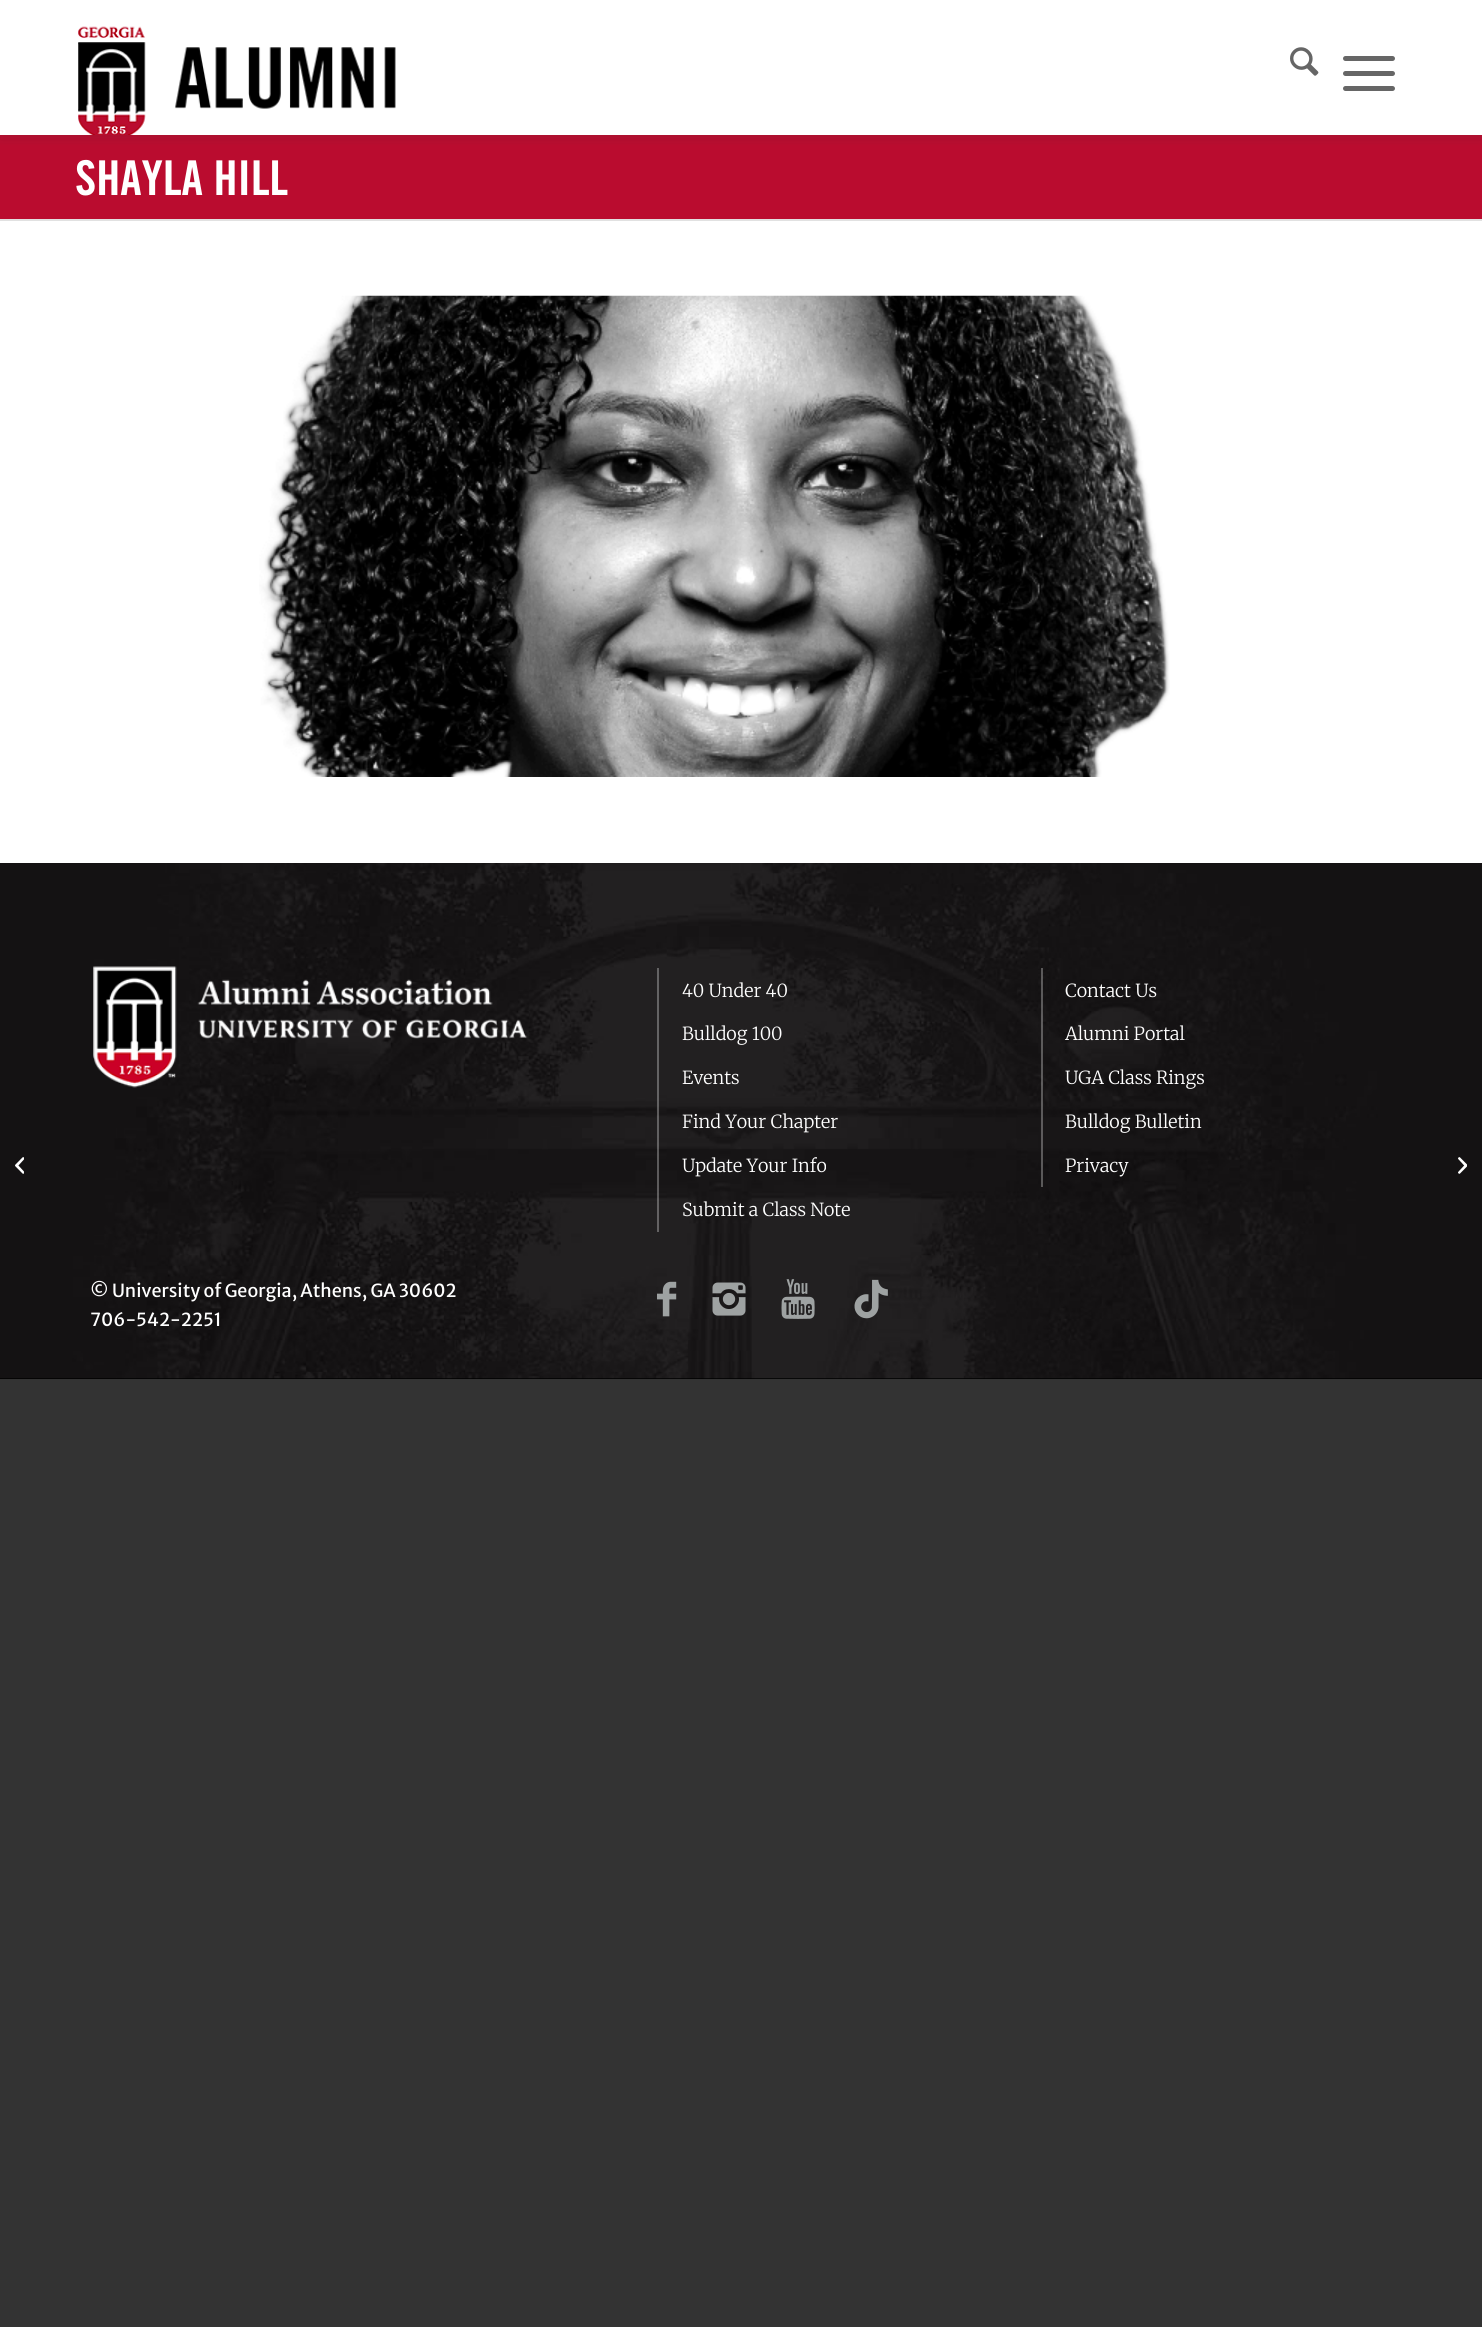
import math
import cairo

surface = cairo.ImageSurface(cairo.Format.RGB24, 1482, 2327)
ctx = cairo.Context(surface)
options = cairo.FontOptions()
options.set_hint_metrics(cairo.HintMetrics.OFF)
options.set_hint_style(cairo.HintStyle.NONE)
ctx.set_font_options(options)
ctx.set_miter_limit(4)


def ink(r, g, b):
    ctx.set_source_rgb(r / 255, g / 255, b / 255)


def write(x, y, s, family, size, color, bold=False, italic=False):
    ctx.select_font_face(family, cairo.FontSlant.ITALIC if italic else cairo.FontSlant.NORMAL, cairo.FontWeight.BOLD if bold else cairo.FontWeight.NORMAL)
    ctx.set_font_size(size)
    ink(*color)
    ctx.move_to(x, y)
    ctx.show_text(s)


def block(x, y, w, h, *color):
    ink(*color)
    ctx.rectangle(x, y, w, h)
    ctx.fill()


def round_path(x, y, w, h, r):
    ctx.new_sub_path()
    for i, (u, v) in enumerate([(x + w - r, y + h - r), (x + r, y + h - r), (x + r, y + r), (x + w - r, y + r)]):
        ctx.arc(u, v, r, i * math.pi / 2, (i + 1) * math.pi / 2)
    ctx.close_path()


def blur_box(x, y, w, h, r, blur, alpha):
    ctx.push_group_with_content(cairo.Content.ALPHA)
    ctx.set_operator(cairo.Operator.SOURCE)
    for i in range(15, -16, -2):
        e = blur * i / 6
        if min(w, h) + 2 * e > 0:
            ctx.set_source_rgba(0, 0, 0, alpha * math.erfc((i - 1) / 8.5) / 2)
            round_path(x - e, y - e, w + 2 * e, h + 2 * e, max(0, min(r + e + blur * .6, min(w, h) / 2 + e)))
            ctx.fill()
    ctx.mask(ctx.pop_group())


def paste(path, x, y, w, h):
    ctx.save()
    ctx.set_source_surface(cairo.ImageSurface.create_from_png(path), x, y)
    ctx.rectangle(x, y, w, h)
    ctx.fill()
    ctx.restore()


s1 = dict(family="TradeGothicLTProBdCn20", size=48, color=(255, 255, 255))
s2 = dict(family="Merriweather Light", size=18, color=(255, 255, 255))
s3 = dict(family="Merriweather Sans", size=18, color=(255, 255, 255))

ink(51, 51, 51)
ctx.paint()
block(0, 0, 1482, 135, 255, 255, 255)
block(0, 135, 1482, 84, 186, 12, 47)
ctx.save()
ctx.rectangle(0, 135, 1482, 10)
ctx.clip()
ink(50, 50, 50)
blur_box(0, 0, 1482, 135, 0, 7.5, 0.2)
ctx.restore()
paste("pic1.png", 78, 26, 318, 109)
paste("pic2.png", 1290, 47, 29, 29)
ink(102, 102, 102)
round_path(1343, 71, 52, 5, 2.5)
ctx.fill()
round_path(1343, 56, 52, 5, 2.5)
ctx.fill()
round_path(1343, 86, 52, 5, 2.5)
ctx.fill()
write(75, 195, "SHAYLA HILL", **s1)
block(0, 221, 1482, 642, 255, 255, 255)
block(0, 219, 1482, 2, 225, 225, 225)
paste("pic3.png", 259, 295, 911, 482)
block(0, 1378, 1482, 1, 0, 0, 0)
paste("pic5.png", 0, 863, 1482, 516)
paste("pic4.png", 15, 1157, 9, 17)
paste("pic6.png", 93, 966, 435, 122)
block(657, 968, 2, 132, 100, 99, 100)
write(682, 997, "40 Under 40", **s2)
ctx.set_source_rgba(1, 1, 1, 0.3)
ctx.rectangle(1041, 968, 2, 45)
ctx.fill()
write(1065, 997, "Contact Us", **s2)
write(682, 1040, "Bulldog 100", **s2)
ctx.set_source_rgba(1, 1, 1, 0.3)
ctx.rectangle(1041, 1013, 2, 43)
ctx.fill()
write(1065, 1040, "Alumni Portal", **s2)
write(682, 1084, "Events", **s2)
ctx.set_source_rgba(1, 1, 1, 0.3)
ctx.rectangle(1041, 1056, 2, 44)
ctx.fill()
write(1065, 1084, "UGA Class Rings", **s2)
ctx.set_source_rgba(1, 1, 1, 0.3)
ctx.rectangle(657, 1100, 2, 43)
ctx.fill()
write(682, 1128, "Find Your Chapter", **s2)
ctx.set_source_rgba(1, 1, 1, 0.3)
ctx.rectangle(1041, 1100, 2, 43)
ctx.fill()
write(1065, 1128, "Bulldog Bulletin", **s2)
ctx.set_source_rgba(1, 1, 1, 0.3)
ctx.rectangle(657, 1143, 2, 44)
ctx.fill()
write(682, 1172, "Update Your Info", **s2)
ctx.set_source_rgba(1, 1, 1, 0.3)
ctx.rectangle(1041, 1143, 2, 44)
ctx.fill()
write(1065, 1172, "Privacy", **s2)
ctx.set_source_rgba(1, 1, 1, 0.3)
ctx.rectangle(657, 1187, 2, 45)
ctx.fill()
write(682, 1216, "Submit a Class Note", **s2)
write(90, 1297, "© University of Georgia, Athens, GA 30602", **s3)
write(90, 1326, "706-542-2251", **s3)
paste("pic7.png", 657, 1281, 20, 36)
paste("pic8.png", 712, 1282, 34, 34)
paste("pic9.png", 781, 1279, 34, 40)
paste("pic10.png", 854, 1279, 34, 40)
paste("pic11.png", 1458, 1157, 9, 17)
surface.write_to_png("screenshot.png")
